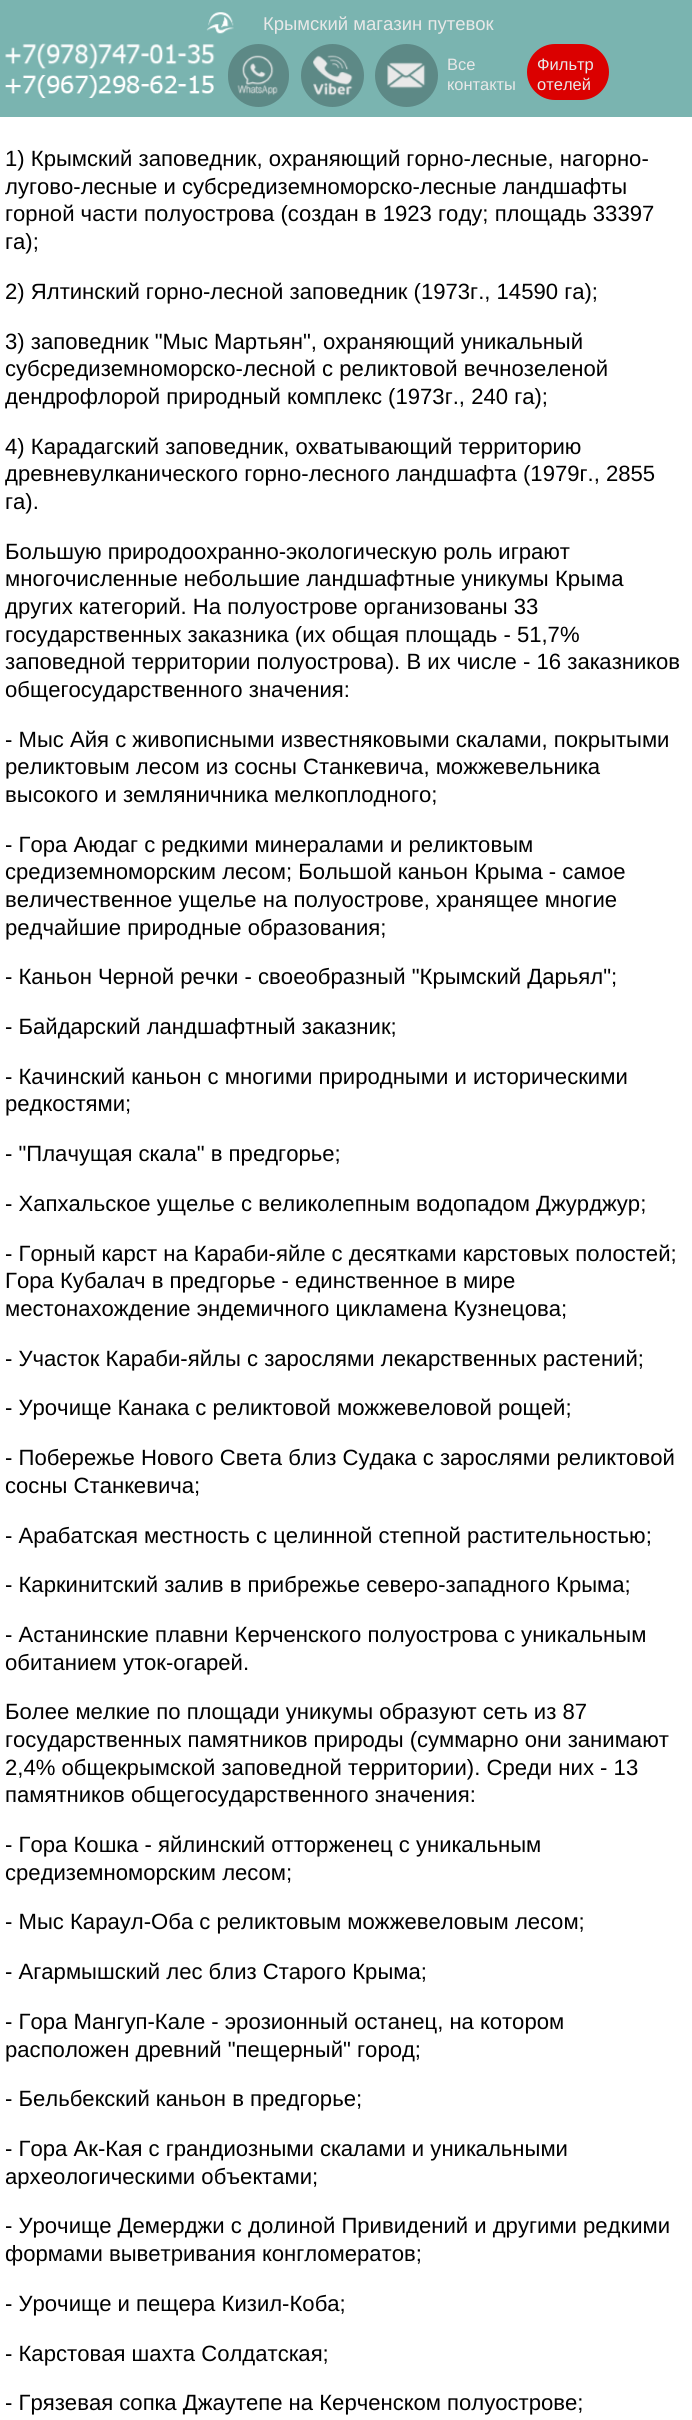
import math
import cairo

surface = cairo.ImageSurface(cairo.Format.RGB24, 692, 2420)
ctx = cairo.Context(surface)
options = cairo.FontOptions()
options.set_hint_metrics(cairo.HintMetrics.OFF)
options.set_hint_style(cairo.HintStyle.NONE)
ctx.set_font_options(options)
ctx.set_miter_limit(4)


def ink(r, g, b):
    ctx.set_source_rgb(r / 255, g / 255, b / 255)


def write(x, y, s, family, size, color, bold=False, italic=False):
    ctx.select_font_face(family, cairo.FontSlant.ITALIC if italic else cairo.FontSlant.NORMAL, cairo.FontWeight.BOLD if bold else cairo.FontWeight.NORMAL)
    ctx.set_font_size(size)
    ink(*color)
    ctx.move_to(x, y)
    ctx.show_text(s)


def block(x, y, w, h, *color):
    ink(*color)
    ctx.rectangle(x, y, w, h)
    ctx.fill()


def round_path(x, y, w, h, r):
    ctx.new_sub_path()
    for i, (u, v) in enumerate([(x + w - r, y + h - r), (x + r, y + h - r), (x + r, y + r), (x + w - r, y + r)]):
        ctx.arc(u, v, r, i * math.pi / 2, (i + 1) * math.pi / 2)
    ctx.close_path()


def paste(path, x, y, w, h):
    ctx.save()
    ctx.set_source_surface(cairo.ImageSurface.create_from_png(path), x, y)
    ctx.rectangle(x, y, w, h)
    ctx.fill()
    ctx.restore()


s1 = dict(family="Liberation Sans", size=18.5, color=(232, 232, 232))
s2 = dict(family="Liberation Sans", size=16.5, color=(232, 232, 232))
s3 = dict(family="Liberation Sans", size=22.1, color=(0, 0, 0))

ink(255, 255, 255)
ctx.paint()
block(0, 0, 692, 117, 122, 180, 176)
paste("pic1.png", 206, 12, 28, 22)
write(263, 30, "Крымский магазин путевок", **s1)
paste("pic2.png", 5, 43, 210, 27)
paste("pic3.png", 5, 75, 209, 23)
ink(93, 137, 134)
round_path(228, 44, 61, 63, 30.5)
ctx.fill()
paste("pic4.png", 237, 55, 41, 41)
ctx.arc(332.5, 75.5, 31.5, 0, 2 * math.pi)
ctx.fill()
paste("pic5.png", 313, 55, 40, 41)
ctx.arc(406.5, 75.5, 31.5, 0, 2 * math.pi)
ctx.fill()
paste("pic6.png", 387, 62, 39, 27)
write(447, 70, "Все", **s2)
write(447, 90, "контакты", **s2)
ink(219, 0, 0)
round_path(527, 44, 82, 56, 28)
ctx.fill()
write(537, 70, "Фильтр", **s2)
write(537, 90, "отелей", **s2)
write(5, 166, "1) Крымский заповедник, охраняющий горно-лесные, нагорно-", **s3)
write(5, 194, "лугово-лесные и субсредиземноморско-лесные ландшафты", **s3)
write(5, 221, "горной части полуострова (создан в 1923 году; площадь 33397", **s3)
write(5, 249, "га);", **s3)
write(5, 299, "2) Ялтинский горно-лесной заповедник (1973г., 14590 га);", **s3)
write(5, 349, "3) заповедник \"Мыс Мартьян\", охраняющий уникальный", **s3)
write(5, 376, "субсредиземноморско-лесной с реликтовой вечнозеленой", **s3)
write(5, 404, "дендрофлорой природный комплекс (1973г., 240 га);", **s3)
write(5, 454, "4) Карадагский заповедник, охватывающий территорию", **s3)
write(5, 481, "древневулканического горно-лесного ландшафта (1979г., 2855", **s3)
write(5, 509, "га).", **s3)
write(5, 559, "Большую природоохранно-экологическую роль играют", **s3)
write(5, 586, "многочисленные небольшие ландшафтные уникумы Крыма", **s3)
write(5, 614, "других категорий. На полуострове организованы 33", **s3)
write(5, 642, "государственных заказника (их общая площадь - 51,7%", **s3)
write(5, 669, "заповедной территории полуострова). В их числе - 16 заказников", **s3)
write(5, 697, "общегосударственного значения:", **s3)
write(5, 747, "- Мыс Айя с живописными известняковыми скалами, покрытыми", **s3)
write(5, 774, "реликтовым лесом из сосны Станкевича, можжевельника", **s3)
write(5, 802, "высокого и земляничника мелкоплодного;", **s3)
write(5, 852, "- Гора Аюдаг с редкими минералами и реликтовым", **s3)
write(5, 879, "средиземноморским лесом; Большой каньон Крыма - самое", **s3)
write(5, 907, "величественное ущелье на полуострове, хранящее многие", **s3)
write(5, 935, "редчайшие природные образования;", **s3)
write(5, 984, "- Каньон Черной речки - своеобразный \"Крымский Дарьял\";", **s3)
write(5, 1034, "- Байдарский ландшафтный заказник;", **s3)
write(5, 1084, "- Качинский каньон с многими природными и историческими", **s3)
write(5, 1111, "редкостями;", **s3)
write(5, 1161, "- \"Плачущая скала\" в предгорье;", **s3)
write(5, 1211, "- Хапхальское ущелье с великолепным водопадом Джурджур;", **s3)
write(5, 1261, "- Горный карст на Караби-яйле с десятками карстовых полостей;", **s3)
write(5, 1288, "Гора Кубалач в предгорье - единственное в мире", **s3)
write(5, 1316, "местонахождение эндемичного цикламена Кузнецова;", **s3)
write(5, 1366, "- Участок Караби-яйлы с зарослями лекарственных растений;", **s3)
write(5, 1415, "- Урочище Канака с реликтовой можжевеловой рощей;", **s3)
write(5, 1465, "- Побережье Нового Света близ Судака с зарослями реликтовой", **s3)
write(5, 1493, "сосны Станкевича;", **s3)
write(5, 1543, "- Арабатская местность с целинной степной растительностью;", **s3)
write(5, 1592, "- Каркинитский залив в прибрежье северо-западного Крыма;", **s3)
write(5, 1642, "- Астанинские плавни Керченского полуострова с уникальным", **s3)
write(5, 1670, "обитанием уток-огарей.", **s3)
write(5, 1719, "Более мелкие по площади уникумы образуют сеть из 87", **s3)
write(5, 1747, "государственных памятников природы (суммарно они занимают", **s3)
write(5, 1775, "2,4% общекрымской заповедной территории). Среди них - 13", **s3)
write(5, 1802, "памятников общегосударственного значения:", **s3)
write(5, 1852, "- Гора Кошка - яйлинский отторженец с уникальным", **s3)
write(5, 1880, "средиземноморским лесом;", **s3)
write(5, 1929, "- Мыс Караул-Оба с реликтовым можжевеловым лесом;", **s3)
write(5, 1979, "- Агармышский лес близ Старого Крыма;", **s3)
write(5, 2029, "- Гора Мангуп-Кале - эрозионный останец, на котором", **s3)
write(5, 2057, "расположен древний \"пещерный\" город;", **s3)
write(5, 2106, "- Бельбекский каньон в предгорье;", **s3)
write(5, 2156, "- Гора Ак-Кая с грандиозными скалами и уникальными", **s3)
write(5, 2184, "археологическими объектами;", **s3)
write(5, 2233, "- Урочище Демерджи с долиной Привидений и другими редкими", **s3)
write(5, 2261, "формами выветривания конгломератов;", **s3)
write(5, 2311, "- Урочище и пещера Кизил-Коба;", **s3)
write(5, 2361, "- Карстовая шахта Солдатская;", **s3)
write(5, 2410, "- Грязевая сопка Джаутепе на Керченском полуострове;", **s3)
surface.write_to_png("screenshot.png")
